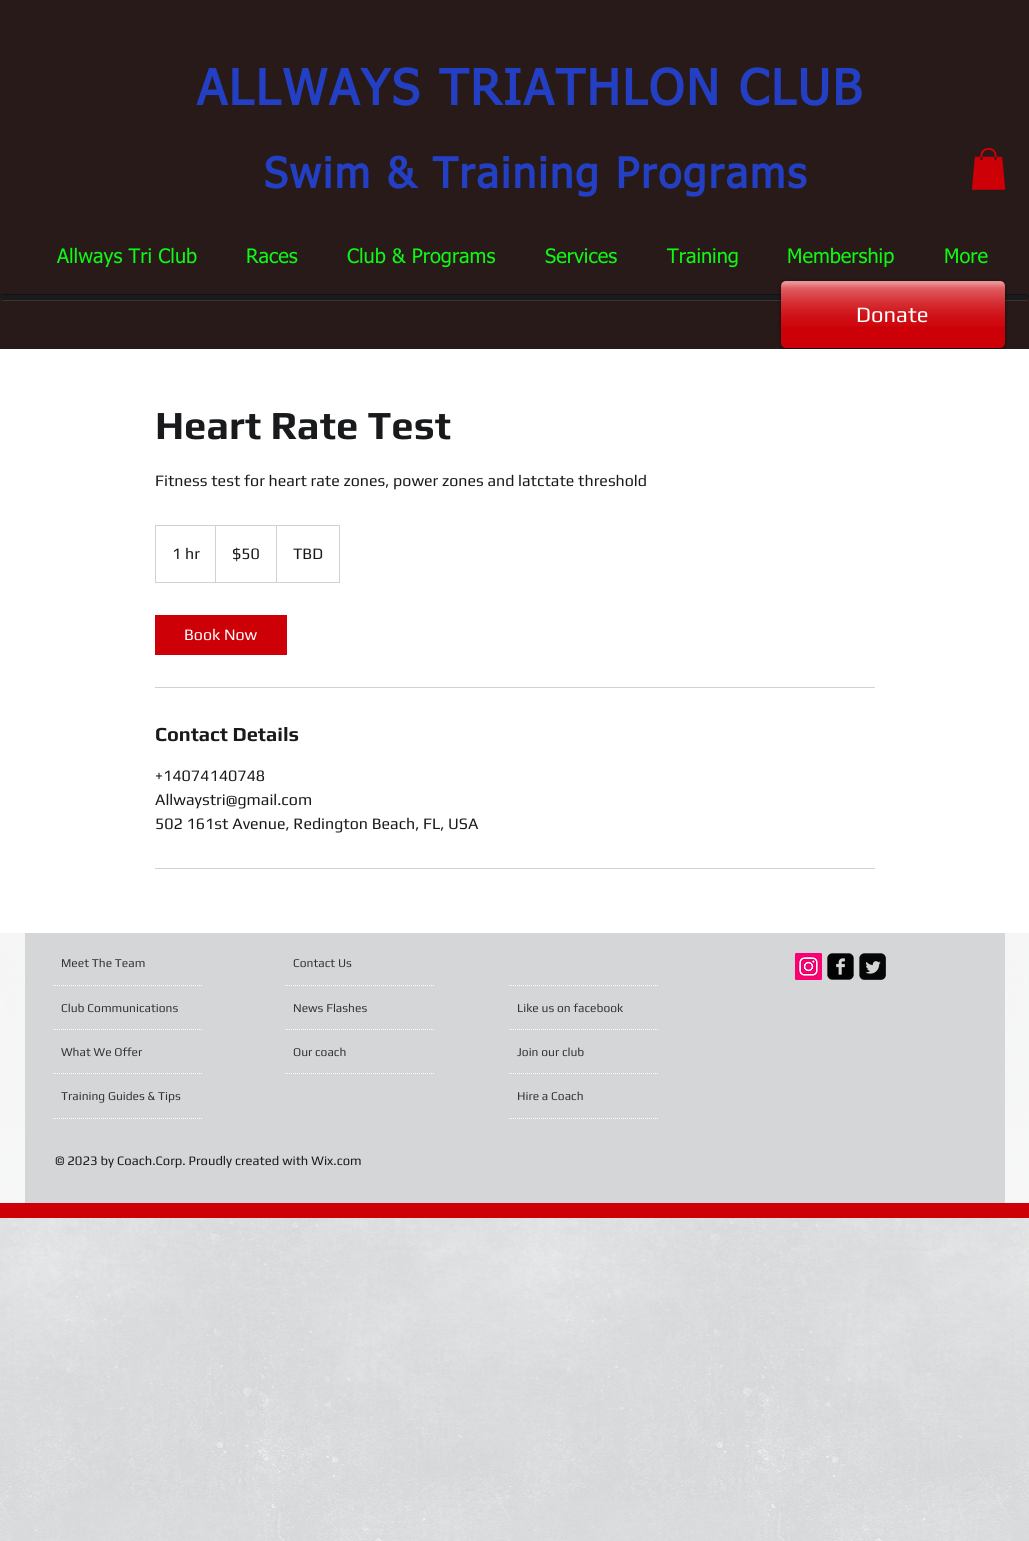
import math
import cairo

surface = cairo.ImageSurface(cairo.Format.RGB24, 1029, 1541)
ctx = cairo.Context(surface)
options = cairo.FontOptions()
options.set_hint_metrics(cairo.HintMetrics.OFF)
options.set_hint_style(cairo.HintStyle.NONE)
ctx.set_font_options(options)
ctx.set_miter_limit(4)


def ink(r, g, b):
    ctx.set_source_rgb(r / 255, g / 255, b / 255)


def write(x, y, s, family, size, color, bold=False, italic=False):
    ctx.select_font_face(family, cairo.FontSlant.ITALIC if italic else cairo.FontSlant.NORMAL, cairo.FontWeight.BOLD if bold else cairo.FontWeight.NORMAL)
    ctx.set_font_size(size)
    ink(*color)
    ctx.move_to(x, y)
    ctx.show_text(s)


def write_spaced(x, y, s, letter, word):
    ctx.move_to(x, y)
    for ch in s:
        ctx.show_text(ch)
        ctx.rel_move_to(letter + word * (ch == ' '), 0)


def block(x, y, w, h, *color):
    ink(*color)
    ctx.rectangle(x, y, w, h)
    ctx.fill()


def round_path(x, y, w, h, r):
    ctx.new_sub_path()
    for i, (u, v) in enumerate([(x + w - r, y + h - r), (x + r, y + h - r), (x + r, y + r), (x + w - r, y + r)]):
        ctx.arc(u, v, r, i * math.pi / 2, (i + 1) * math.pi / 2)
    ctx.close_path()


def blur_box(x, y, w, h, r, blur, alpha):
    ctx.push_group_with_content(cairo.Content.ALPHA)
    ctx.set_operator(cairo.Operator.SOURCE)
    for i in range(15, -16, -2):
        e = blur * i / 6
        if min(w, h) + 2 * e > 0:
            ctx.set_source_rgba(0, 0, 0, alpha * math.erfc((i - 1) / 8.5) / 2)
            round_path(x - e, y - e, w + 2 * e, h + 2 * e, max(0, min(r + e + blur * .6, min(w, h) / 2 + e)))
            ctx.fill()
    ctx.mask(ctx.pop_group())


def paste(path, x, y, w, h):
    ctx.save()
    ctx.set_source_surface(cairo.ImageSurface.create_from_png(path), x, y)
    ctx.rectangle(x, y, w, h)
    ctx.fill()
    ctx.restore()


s1 = dict(family="tahoma", size=20, color=(15, 247, 18))
s2 = dict(family="Play", size=22, color=(255, 255, 255))
s3 = dict(family="Play", size=40, color=(24, 26, 28), bold=True)
s4 = dict(family="Play", size=16, color=(24, 26, 28))
s5 = dict(family="Play", size=16, color=(255, 255, 255))
s6 = dict(family="Play", size=20, color=(24, 26, 28), bold=True)
s7 = dict(family="Play", size=12, color=(49, 53, 56))
s8 = dict(family="Play", size=13, color=(24, 26, 28))

ink(212, 214, 215)
ctx.paint()
block(0, 0, 1029, 349, 41, 26, 26)
ctx.select_font_face("tahoma", cairo.FontSlant.NORMAL, cairo.FontWeight.BOLD)
ctx.set_font_size(49)
ink(35, 63, 196)
write_spaced(197, 105, "ALLWAYS TRIATHLON CLUB", 2.45, 0)
ctx.set_font_size(42)
write_spaced(264, 188, "Swim & Training Programs", 2.1, 0)
paste("pic1.png", 971, 148, 35, 42)
write(57, 263, "Allways Tri Club", **s1)
write(246, 263, "Races", **s1)
write(347, 263, "Club & Programs", **s1)
write(545, 263, "Services", **s1)
write(667, 263, "Training", **s1)
write(787, 263, "Membership", **s1)
write(944, 263, "More", **s1)
ink(62, 49, 49)
ctx.new_path()
ctx.move_to(0, 298)
ctx.line_to(1, 300)
ctx.line_to(3, 301)
ctx.line_to(1026, 301)
ctx.line_to(1028, 300)
ctx.line_to(1029, 298)
ctx.curve_to(1029, 299, 1027, 300, 1026, 300)
ctx.line_to(3, 300)
ctx.curve_to(2, 300, 0, 299, 0, 298)
ctx.close_path()
ctx.fill()
ink(24, 26, 28)
round_path(0, 294, 1029, 6, 3)
ctx.fill()
ctx.set_source_rgba(0, 0, 0, 0.25)
ctx.new_path()
ctx.move_to(3, 295)
ctx.line_to(1027, 295)
ctx.curve_to(1028, 295, 1029, 297, 1029, 298)
ctx.curve_to(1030, 296, 1028, 294, 1026, 294)
ctx.line_to(3, 294)
ctx.curve_to(1, 294, 0, 296, 0, 297)
ctx.curve_to(0, 296, 1, 295, 3, 295)
ctx.close_path()
ctx.fill()
ink(0, 0, 0)
blur_box(781, 282, 224, 67, 5, 2, 0.6)
ink(204, 0, 6)
round_path(781, 281, 224, 67, 5)
ctx.fill()
paste("pic2.png", 781, 281, 224, 46)
write(856, 322, "Donate", **s2)
block(0, 349, 1029, 584, 255, 255, 255)
write(155, 439, "Heart Rate Test", **s3)
write(155, 486, "Fitness test for heart rate zones, power zones and latctate threshold", **s4)
ctx.rectangle(155.5, 525.5, 184, 57)
ink(209, 209, 210)
ctx.set_line_width(1)
ctx.stroke()
write(172, 559, "1 hr", **s4)
ink(209, 209, 210)
ctx.new_path()
ctx.move_to(215, 582)
ctx.line_to(215, 525)
ctx.line_to(216, 526)
ctx.line_to(216, 582)
ctx.close_path()
ctx.fill()
write(232, 559, "$50", **s4)
ink(209, 209, 210)
ctx.new_path()
ctx.move_to(276, 582)
ctx.line_to(276, 525)
ctx.line_to(277, 526)
ctx.line_to(277, 582)
ctx.close_path()
ctx.fill()
write(293, 559, "TBD", **s4)
block(155, 615, 132, 40, 204, 0, 6)
write(184, 640, "Book Now", **s5)
block(155, 687, 720, 1, 209, 209, 210)
write(155, 741, "Contact Details", **s6)
write(155, 781, "+14074140748", **s4)
write(155, 805, "Allwaystri@gmail.com", **s4)
write(155, 829, "502 161st Avenue, Redington Beach, FL, USA", **s4)
block(155, 868, 720, 1, 209, 209, 210)
paste("pic6.png", 0, 933, 1029, 608)
ctx.set_source_rgba(1, 1, 1, 0.75)
ctx.rectangle(0, 933, 1029, 270)
ctx.fill()
block(0, 1203, 1029, 15, 204, 0, 6)
block(25, 933, 980, 270, 212, 214, 215)
write(61, 967, "Meet The Team", **s7)
write(293, 967, "Contact Us", **s7)
paste("pic3.png", 795, 953, 27, 27)
paste("pic4.png", 827, 953, 27, 27)
paste("pic5.png", 859, 953, 27, 27)
ctx.new_path()
ctx.move_to(53, 985.5)
ctx.line_to(203, 985.5)
ink(255, 255, 255)
ctx.set_dash([1, 1])
ctx.stroke()
ctx.new_path()
ctx.move_to(285, 985.5)
ctx.line_to(435, 985.5)
ctx.stroke()
ctx.new_path()
ctx.move_to(509, 985.5)
ctx.line_to(659, 985.5)
ctx.stroke()
write(61, 1012, "Club Communications", **s7)
write(293, 1012, "News Flashes", **s7)
write(517, 1012, "Like us on facebook", **s7)
ctx.new_path()
ctx.move_to(53, 1029.5)
ctx.line_to(203, 1029.5)
ink(255, 255, 255)
ctx.stroke()
ctx.new_path()
ctx.move_to(285, 1029.5)
ctx.line_to(435, 1029.5)
ctx.stroke()
ctx.new_path()
ctx.move_to(509, 1029.5)
ctx.line_to(659, 1029.5)
ctx.stroke()
write(61, 1056, "What We Offer", **s7)
write(293, 1056, "Our coach", **s7)
write(517, 1056, "Join our club", **s7)
ctx.new_path()
ctx.move_to(53, 1073.5)
ctx.line_to(203, 1073.5)
ink(255, 255, 255)
ctx.stroke()
ctx.new_path()
ctx.move_to(285, 1073.5)
ctx.line_to(435, 1073.5)
ctx.stroke()
ctx.new_path()
ctx.move_to(509, 1073.5)
ctx.line_to(659, 1073.5)
ctx.stroke()
write(61, 1100, "Training Guides & Tips", **s7)
write(517, 1100, "Hire a Coach", **s7)
ctx.new_path()
ctx.move_to(53, 1118.5)
ctx.line_to(203, 1118.5)
ink(255, 255, 255)
ctx.stroke()
ctx.new_path()
ctx.move_to(509, 1118.5)
ctx.line_to(659, 1118.5)
ctx.stroke()
write(55, 1165, "© 2023 by Coach.Corp. Proudly created with Wix.com", **s8)
surface.write_to_png("screenshot.png")
